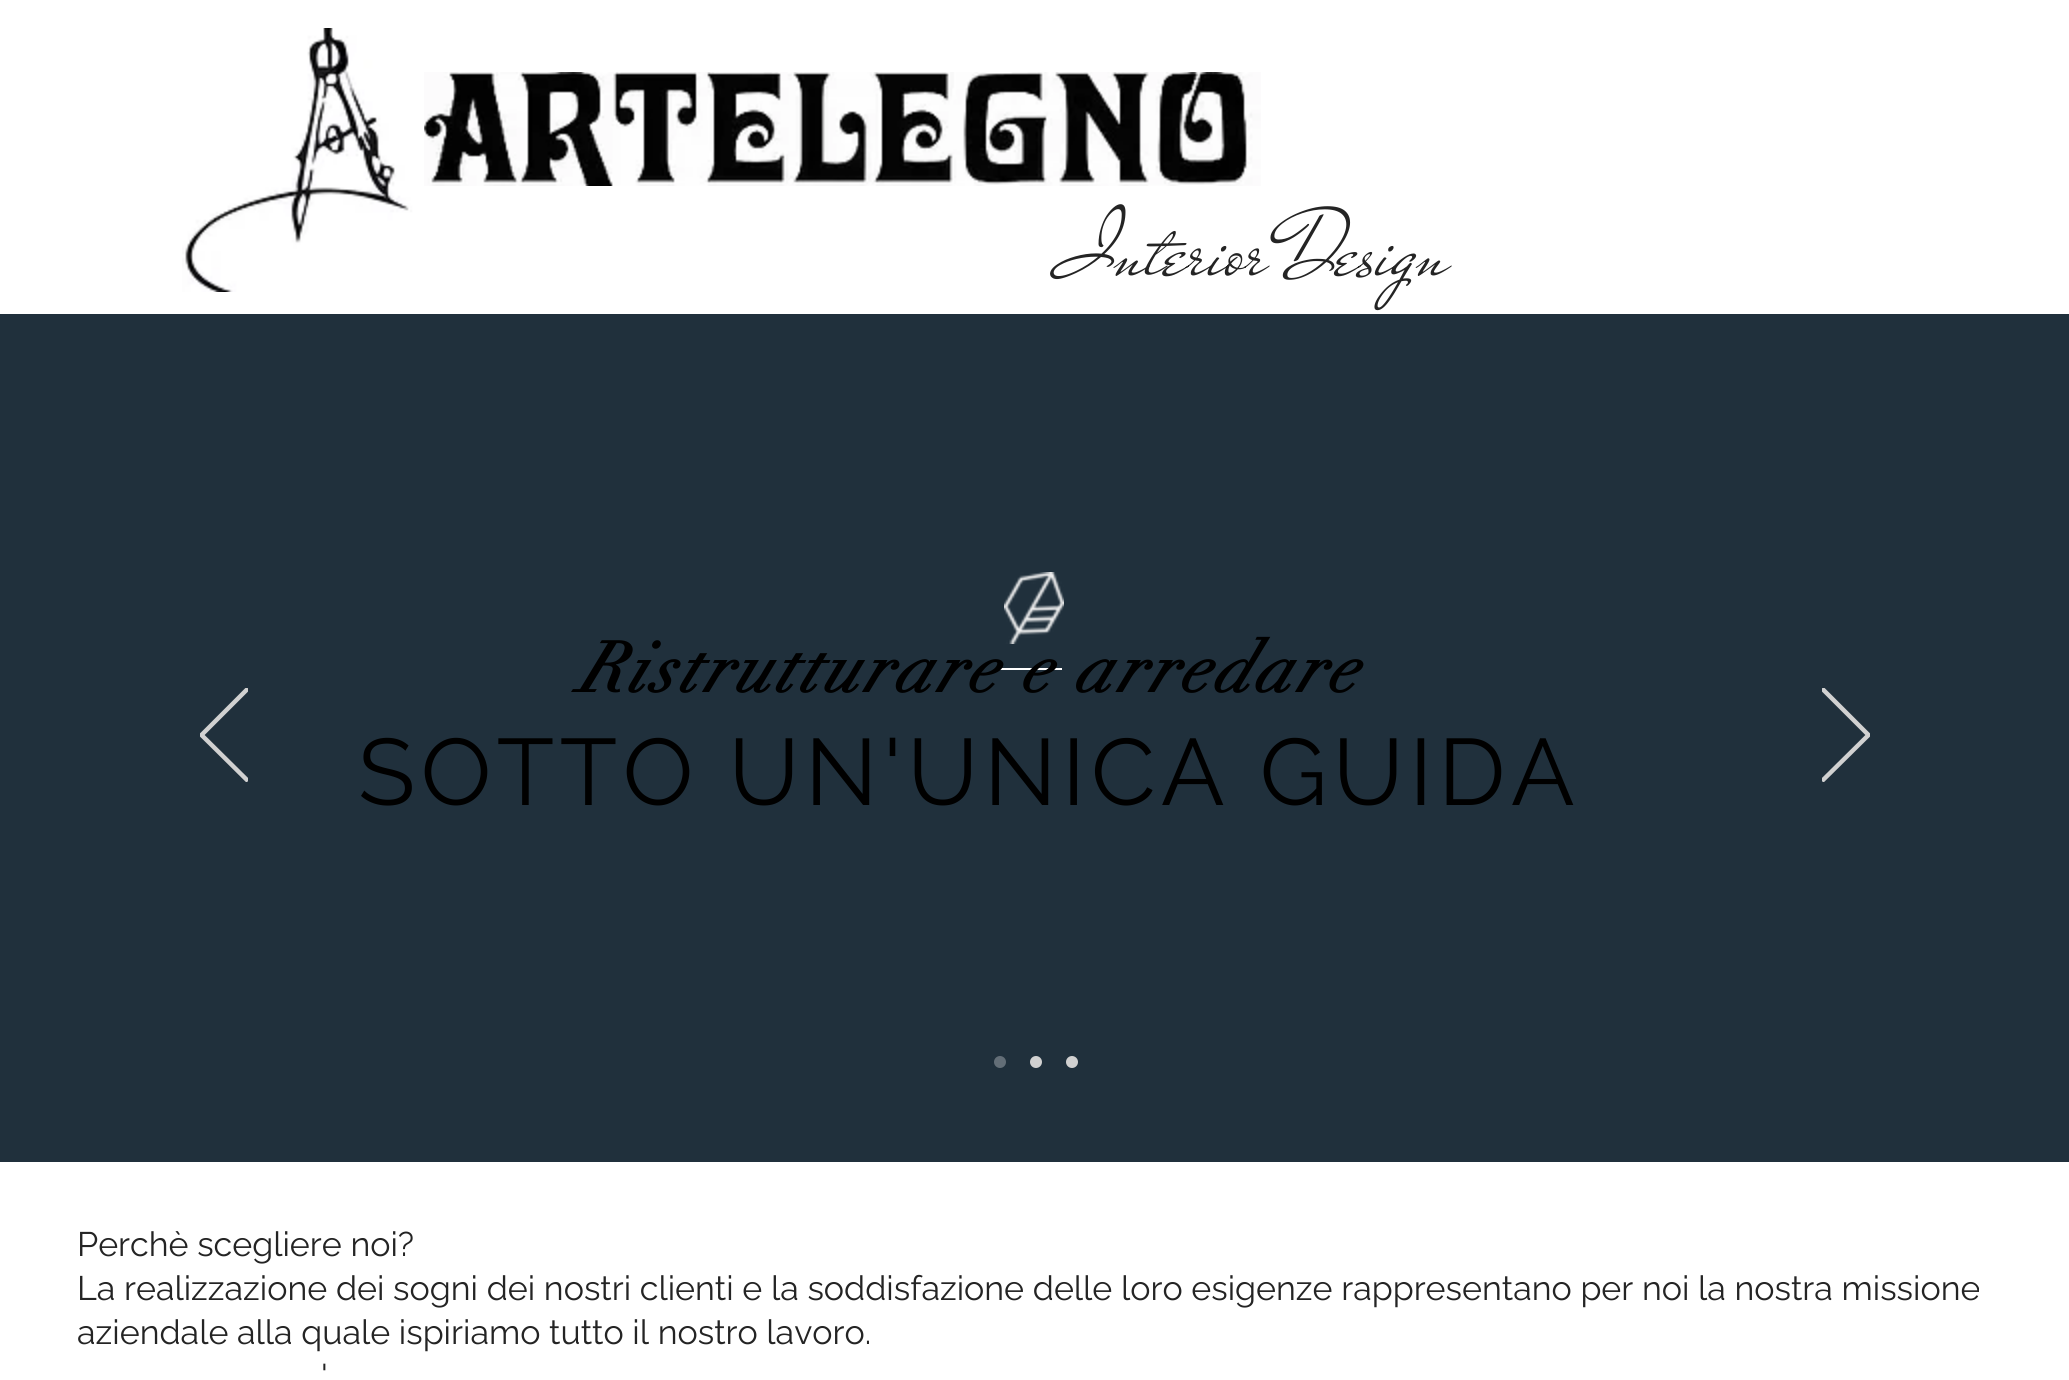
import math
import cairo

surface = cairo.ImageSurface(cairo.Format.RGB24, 2069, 1380)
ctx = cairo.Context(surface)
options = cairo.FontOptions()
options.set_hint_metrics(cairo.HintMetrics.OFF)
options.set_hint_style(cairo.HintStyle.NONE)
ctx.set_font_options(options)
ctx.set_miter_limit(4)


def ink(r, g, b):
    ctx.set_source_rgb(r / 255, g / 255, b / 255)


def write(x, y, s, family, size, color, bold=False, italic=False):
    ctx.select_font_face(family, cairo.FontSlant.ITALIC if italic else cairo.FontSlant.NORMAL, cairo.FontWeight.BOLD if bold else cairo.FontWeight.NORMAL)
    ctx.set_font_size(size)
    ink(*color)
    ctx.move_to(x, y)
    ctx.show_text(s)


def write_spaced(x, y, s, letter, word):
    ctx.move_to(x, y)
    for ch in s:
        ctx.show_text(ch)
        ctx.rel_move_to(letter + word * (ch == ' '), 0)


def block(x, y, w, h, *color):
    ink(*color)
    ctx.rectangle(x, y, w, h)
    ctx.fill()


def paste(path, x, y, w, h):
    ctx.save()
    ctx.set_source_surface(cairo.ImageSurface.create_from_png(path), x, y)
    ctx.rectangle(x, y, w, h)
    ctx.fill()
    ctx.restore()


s1 = dict(family="Mr De Haviland", size=92, color=(36, 36, 36))
s2 = dict(family="Raleway", size=34, color=(36, 36, 36))

ink(255, 255, 255)
ctx.paint()
paste("pic1.png", 182, 28, 242, 264)
paste("pic2.png", 424, 72, 837, 114)
write(1061, 274, "Interior Design", **s1)
block(0, 314, 2069, 848, 32, 48, 60)
ctx.save()
ctx.rectangle(200, 688, 48, 94)
ctx.clip()
ctx.new_path()
ctx.move_to(246.5, 781)
ctx.line_to(200, 735)
ctx.line_to(246.5, 688.5)
ctx.line_to(248, 690)
ctx.line_to(203, 735)
ctx.line_to(248, 779.5)
ctx.close_path()
ink(209, 209, 209)
ctx.set_line_width(2.3)
ctx.stroke()
ctx.restore()
paste("pic3.png", 1004, 572, 60, 72)
block(998, 668, 64, 2, 255, 255, 255)
ctx.select_font_face("didot", cairo.FontSlant.ITALIC, cairo.FontWeight.BOLD)
ctx.set_font_size(70)
ink(0, 0, 0)
write_spaced(578, 692, "Ristrutturare e arredare", 3.5, 0)
ctx.select_font_face("Raleway")
ctx.set_font_size(94)
write_spaced(358, 805, "SOTTO UN'UNICA GUIDA", 5.6, 0)
ctx.save()
ctx.rectangle(1822, 688, 48, 94)
ctx.clip()
ctx.new_path()
ctx.move_to(1823.5, 781)
ctx.line_to(1870, 735)
ctx.line_to(1823.5, 688.5)
ctx.line_to(1822, 690)
ctx.line_to(1867, 735)
ctx.line_to(1822, 779.5)
ctx.close_path()
ink(209, 209, 209)
ctx.set_line_width(2.3)
ctx.stroke()
ctx.restore()
ink(99, 110, 119)
ctx.arc(1000, 1062, 6, 0, 2 * math.pi)
ctx.fill()
ink(209, 209, 209)
ctx.arc(1036, 1062, 6, 0, 2 * math.pi)
ctx.fill()
ctx.arc(1072, 1062, 6, 0, 2 * math.pi)
ctx.fill()
write(77, 1256, "Perchè scegliere noi?", **s2)
write(77, 1300, "La realizzazione dei sogni dei nostri clienti e la soddisfazione delle loro esigenze rappresentano per noi la nostra missione", **s2)
write(77, 1344, "aziendale alla quale ispiriamo tutto il nostro lavoro.", **s2)
write(321, 1388, "'", **s2)
surface.write_to_png("screenshot.png")
